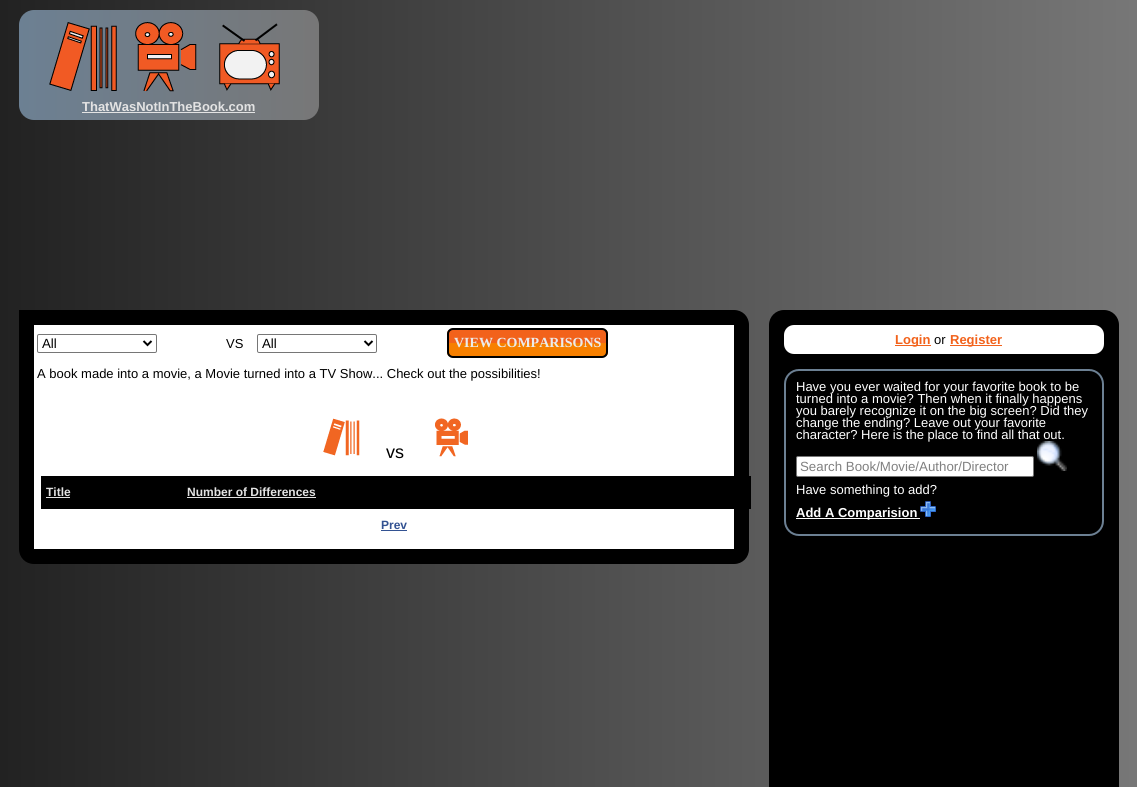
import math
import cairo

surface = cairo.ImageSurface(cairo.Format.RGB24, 1137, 787)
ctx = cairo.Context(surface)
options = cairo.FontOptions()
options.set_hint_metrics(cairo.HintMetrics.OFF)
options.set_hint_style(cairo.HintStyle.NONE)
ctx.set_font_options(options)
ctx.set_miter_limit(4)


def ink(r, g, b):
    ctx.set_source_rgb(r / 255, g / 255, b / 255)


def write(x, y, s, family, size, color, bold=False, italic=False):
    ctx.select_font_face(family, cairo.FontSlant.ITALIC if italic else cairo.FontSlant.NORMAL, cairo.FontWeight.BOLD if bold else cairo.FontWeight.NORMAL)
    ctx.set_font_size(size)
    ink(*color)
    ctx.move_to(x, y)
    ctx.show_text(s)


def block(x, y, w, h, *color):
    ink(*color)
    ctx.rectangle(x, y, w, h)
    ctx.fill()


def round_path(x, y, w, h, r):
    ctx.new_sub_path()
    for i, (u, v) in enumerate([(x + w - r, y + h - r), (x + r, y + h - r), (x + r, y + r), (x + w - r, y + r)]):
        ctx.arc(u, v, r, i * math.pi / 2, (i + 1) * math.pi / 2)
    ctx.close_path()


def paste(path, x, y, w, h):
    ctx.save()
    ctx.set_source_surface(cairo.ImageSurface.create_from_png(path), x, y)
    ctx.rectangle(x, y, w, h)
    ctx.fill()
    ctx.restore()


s1 = dict(family="Liberation Sans", size=13, color=(227, 227, 227), bold=True)
s2 = dict(family="Liberation Sans", size=13.3, color=(0, 0, 0))
s3 = dict(family="Liberation Sans", size=13, color=(0, 0, 0))
s4 = dict(family="Liberation Serif", size=14, color=(235, 235, 235), bold=True)
s5 = dict(family="Liberation Sans", size=18, color=(0, 0, 0))
s6 = dict(family="Liberation Sans", size=12, color=(227, 227, 227), bold=True)
s7 = dict(family="Liberation Sans", size=12, color=(51, 82, 146), bold=True)
s8 = dict(family="Liberation Sans", size=13, color=(242, 98, 27), bold=True)
s9 = dict(family="Liberation Sans", size=13, color=(255, 255, 255))
s10 = dict(family="Liberation Sans", size=13.3, color=(128, 128, 128))
s11 = dict(family="Liberation Sans", size=13, color=(255, 255, 255), bold=True)

ink(255, 255, 255)
ctx.paint()
gradient = cairo.LinearGradient(0, 0, 1137, 0)
gradient.add_color_stop_rgba(0, 0.133, 0.133, 0.133, 1)
gradient.add_color_stop_rgba(1, 0.467, 0.467, 0.467, 1)
ctx.set_source(gradient)
ctx.rectangle(0, 0, 1137, 787)
ctx.fill()
gradient = cairo.LinearGradient(19, 10, 319, 10)
gradient.add_color_stop_rgba(0, 0.424, 0.502, 0.576, 1)
gradient.add_color_stop_rgba(1, 0.467, 0.467, 0.467, 1)
ctx.set_source(gradient)
round_path(19, 10, 300, 110, 15)
ctx.fill()
paste("pic1.png", 49, 22, 231, 70)
write(82, 111, "ThatWasNotInTheBook.com", **s1)
block(82, 112, 173, 1, 227, 227, 227)
ink(0, 0, 0)
ctx.new_path()
ctx.move_to(19, 310)
ctx.line_to(734, 310)
ctx.curve_to(742.5, 310, 749, 316.5, 749, 325)
ctx.line_to(749, 549)
ctx.curve_to(749, 557.5, 742.5, 564, 734, 564)
ctx.line_to(34, 564)
ctx.curve_to(25.5, 564, 19, 557.5, 19, 549)
ctx.close_path()
ctx.fill()
block(34, 325, 700, 224, 255, 255, 255)
round_path(37.5, 334.5, 119, 18, 1.5)
ink(118, 118, 118)
ctx.set_line_width(1)
ctx.stroke()
ctx.new_path()
ctx.move_to(143.5, 341)
ctx.line_to(147.5, 345)
ctx.line_to(151.5, 341)
ink(0, 0, 0)
ctx.set_line_width(2)
ctx.stroke()
write(42, 348, "All", **s2)
write(226, 348, "VS", **s3)
round_path(257.5, 334.5, 119, 18, 1.5)
ink(118, 118, 118)
ctx.set_line_width(1)
ctx.stroke()
ctx.new_path()
ctx.move_to(364.5, 341)
ctx.line_to(368.5, 345)
ctx.line_to(372.5, 341)
ink(0, 0, 0)
ctx.set_line_width(2)
ctx.stroke()
write(262, 348, "All", **s2)
ctx.save()
round_path(447, 328, 161, 30, 6)
ctx.clip()
block(447, 330, 161, 13, 242, 98, 27)
block(447, 343, 161, 13, 247, 128, 0)
ctx.restore()
round_path(448, 329, 159, 28, 5)
ctx.stroke()
write(454, 347, "VIEW COMPARISONS", **s4)
write(37, 378, "A book made into a movie, a Movie turned into a TV Show... Check out the possibilities!", **s3)
paste("pic2.png", 323, 418, 37, 38)
write(386, 458, "vs", **s5)
paste("pic3.png", 435, 418, 33, 39)
block(41, 476, 710, 33, 0, 0, 0)
write(46, 496, "Title", **s6)
block(46, 497, 24, 1, 227, 227, 227)
write(187, 496, "Number of Differences", **s6)
block(187, 497, 129, 1, 227, 227, 227)
write(381, 529, "Prev", **s7)
block(381, 530, 26, 1, 51, 82, 146)
ink(0, 0, 0)
round_path(769, 310, 350, 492, 15)
ctx.fill()
ink(255, 255, 255)
round_path(784, 325, 320, 29, 10)
ctx.fill()
block(895, 345, 36, 1, 242, 98, 27)
write(895, 344, "Login", **s8)
write(934, 344, "or", **s3)
block(950, 345, 52, 1, 242, 98, 27)
write(950, 344, "Register", **s8)
round_path(785, 370, 318, 165, 14)
ink(108, 128, 147)
ctx.stroke()
write(796, 391, "Have you ever waited for your favorite book to be", **s9)
write(796, 403, "turned into a movie? Then when it finally happens", **s9)
write(796, 415, "you barely recognize it on the big screen? Did they", **s9)
write(796, 427, "change the ending? Leave out your favorite", **s9)
write(796, 439, "character? Here is the place to find all that out.", **s9)
round_path(796.5, 456.5, 237, 20, 1.5)
ctx.fill_preserve()
ink(118, 118, 118)
ctx.set_line_width(1)
ctx.stroke()
write(800, 471, "Search Book/Movie/Author/Director", **s10)
paste("pic4.png", 1037, 441, 30, 30)
write(796, 494, "Have something to add?", **s9)
block(796, 518, 124, 1, 255, 255, 255)
write(796, 517, "Add A Comparision", **s11)
paste("pic5.png", 920, 501, 16, 16)
surface.write_to_png("screenshot.png")
